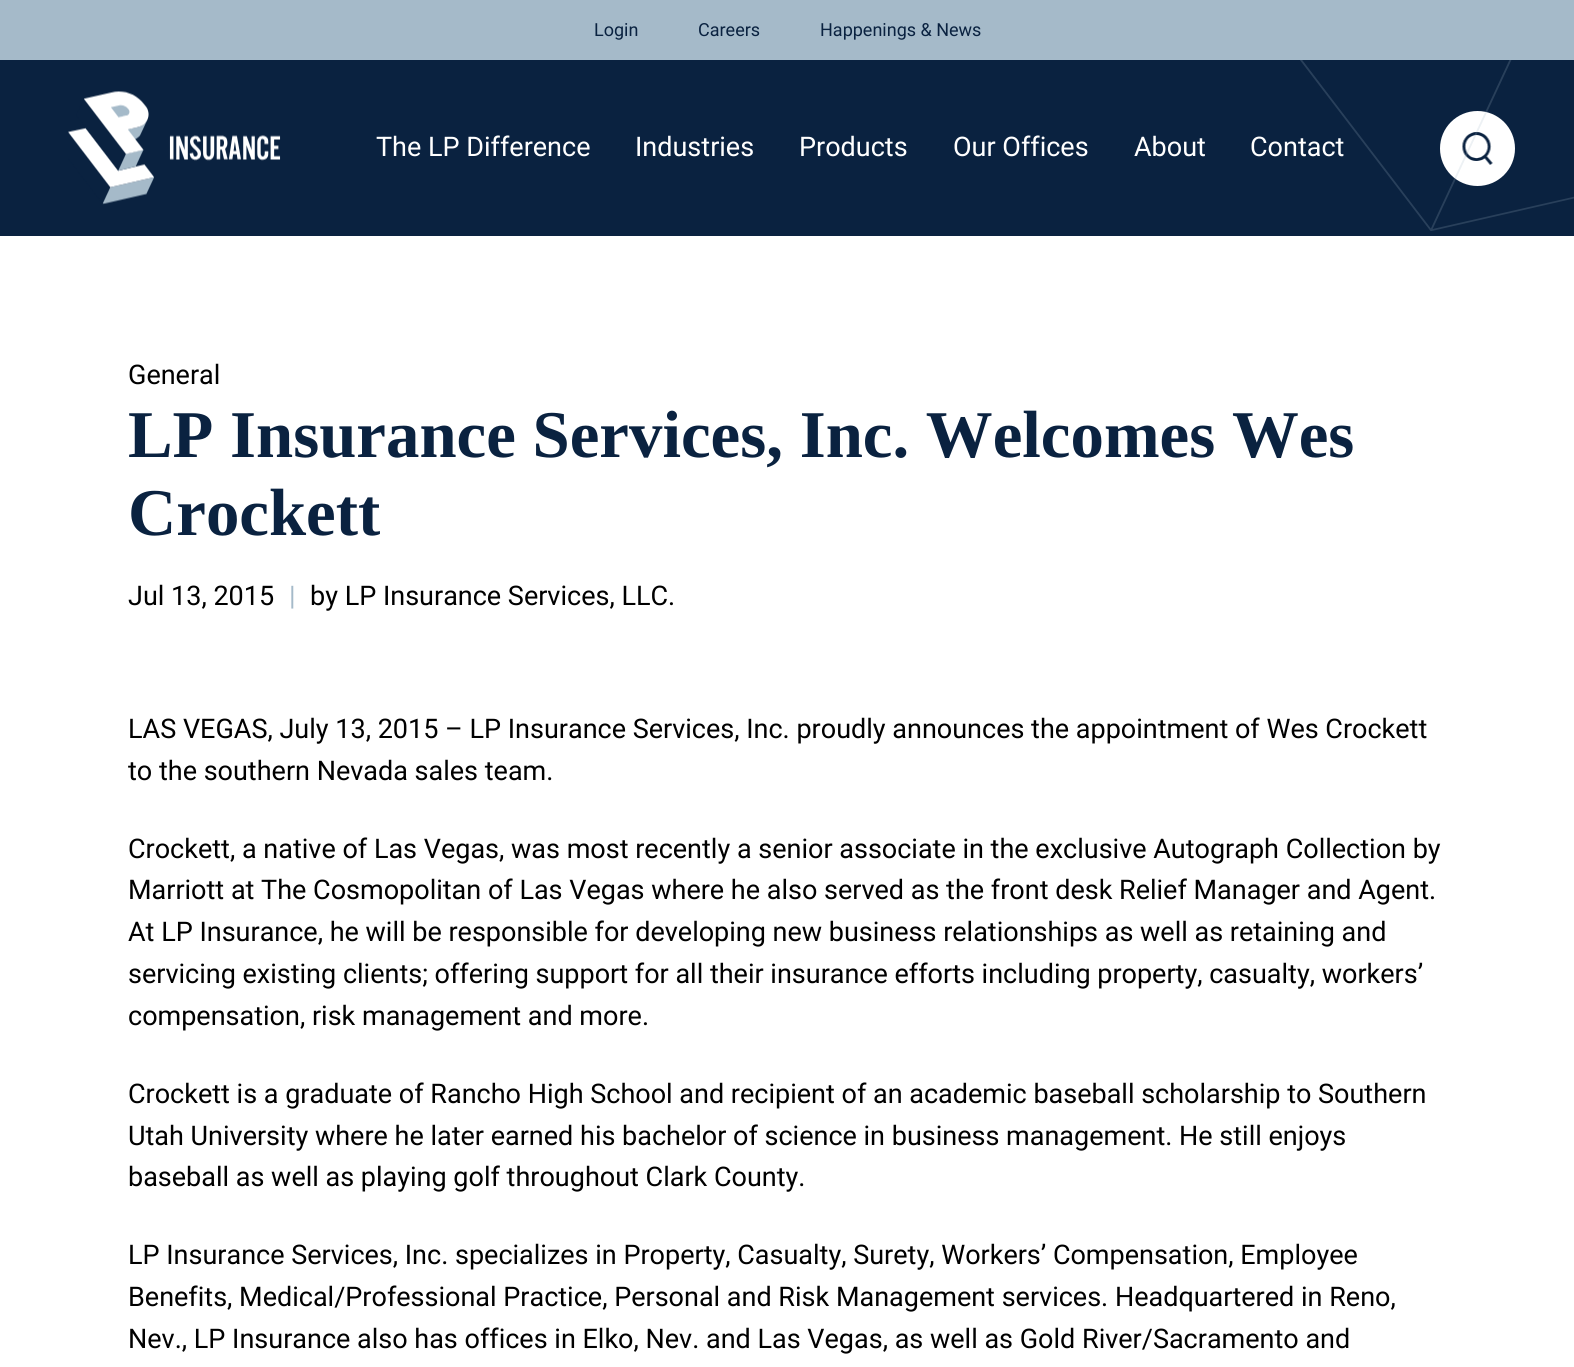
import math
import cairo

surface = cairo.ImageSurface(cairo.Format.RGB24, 1574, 1367)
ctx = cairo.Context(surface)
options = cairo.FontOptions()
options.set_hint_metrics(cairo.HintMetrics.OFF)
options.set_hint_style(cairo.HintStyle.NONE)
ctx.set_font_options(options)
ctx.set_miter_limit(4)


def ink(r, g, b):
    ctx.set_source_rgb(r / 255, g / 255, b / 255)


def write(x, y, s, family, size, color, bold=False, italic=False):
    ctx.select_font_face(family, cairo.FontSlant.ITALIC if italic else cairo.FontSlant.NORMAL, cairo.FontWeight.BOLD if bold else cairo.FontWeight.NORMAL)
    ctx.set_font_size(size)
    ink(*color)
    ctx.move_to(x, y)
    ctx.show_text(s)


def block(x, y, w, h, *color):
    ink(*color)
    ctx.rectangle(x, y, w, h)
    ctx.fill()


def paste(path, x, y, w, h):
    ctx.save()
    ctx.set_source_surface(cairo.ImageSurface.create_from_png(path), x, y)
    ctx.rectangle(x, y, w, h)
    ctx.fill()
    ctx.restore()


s1 = dict(family="Roboto", size=18, color=(10, 34, 64))
s2 = dict(family="Roboto", size=27, color=(255, 255, 255))
s3 = dict(family="Roboto", size=27, color=(0, 0, 0))
s4 = dict(family="Liberation Serif", size=66.8, color=(10, 34, 64), bold=True)
s5 = dict(family="Roboto", size=27, color=(165, 186, 201))

ink(255, 255, 255)
ctx.paint()
block(0, 0, 1574, 60, 165, 186, 201)
write(594, 36, "Login", **s1)
write(698, 36, "Careers", **s1)
write(820, 36, "Happenings & News", **s1)
block(0, 60, 1574, 176, 10, 34, 64)
paste("pic1.png", 68, 91, 213, 114)
write(376, 156, "The LP Difference", **s2)
write(635, 156, "Industries", **s2)
write(799, 156, "Products", **s2)
write(953, 156, "Our Offices", **s2)
write(1134, 156, "About", **s2)
write(1250, 156, "Contact", **s2)
ctx.new_path()
ctx.arc(1477.5, 148.5, 37.5, 0, 2 * math.pi)
ctx.fill()
paste("pic2.png", 1462, 132, 31, 33)
paste("pic3.png", 1300, 60, 274, 171)
write(128, 384, "General", **s3)
write(128, 457, "LP Insurance Services, Inc. Welcomes Wes", **s4)
write(128, 535, "Crockett", **s4)
write(128, 605, "Jul 13, 2015", **s3)
write(289, 605, "|", **s5)
write(310, 605, "by LP Insurance Services, LLC.", **s3)
write(128, 738, "LAS VEGAS, July 13, 2015 – LP Insurance Services, Inc. proudly announces the appointment of Wes Crockett", **s3)
write(128, 780, "to the southern Nevada sales team.", **s3)
write(128, 858, "Crockett, a native of Las Vegas, was most recently a senior associate in the exclusive Autograph Collection by", **s3)
write(128, 899, "Marriott at The Cosmopolitan of Las Vegas where he also served as the front desk Relief Manager and Agent.", **s3)
write(128, 941, "At LP Insurance, he will be responsible for developing new business relationships as well as retaining and", **s3)
write(128, 983, "servicing existing clients; offering support for all their insurance efforts including property, casualty, workers’", **s3)
write(128, 1025, "compensation, risk management and more.", **s3)
write(128, 1103, "Crockett is a graduate of Rancho High School and recipient of an academic baseball scholarship to Southern", **s3)
write(128, 1145, "Utah University where he later earned his bachelor of science in business management. He still enjoys", **s3)
write(128, 1186, "baseball as well as playing golf throughout Clark County.", **s3)
write(128, 1264, "LP Insurance Services, Inc. specializes in Property, Casualty, Surety, Workers’ Compensation, Employee", **s3)
write(128, 1306, "Benefits, Medical/Professional Practice, Personal and Risk Management services. Headquartered in Reno,", **s3)
write(128, 1348, "Nev., LP Insurance also has offices in Elko, Nev. and Las Vegas, as well as Gold River/Sacramento and", **s3)
surface.write_to_png("screenshot.png")
